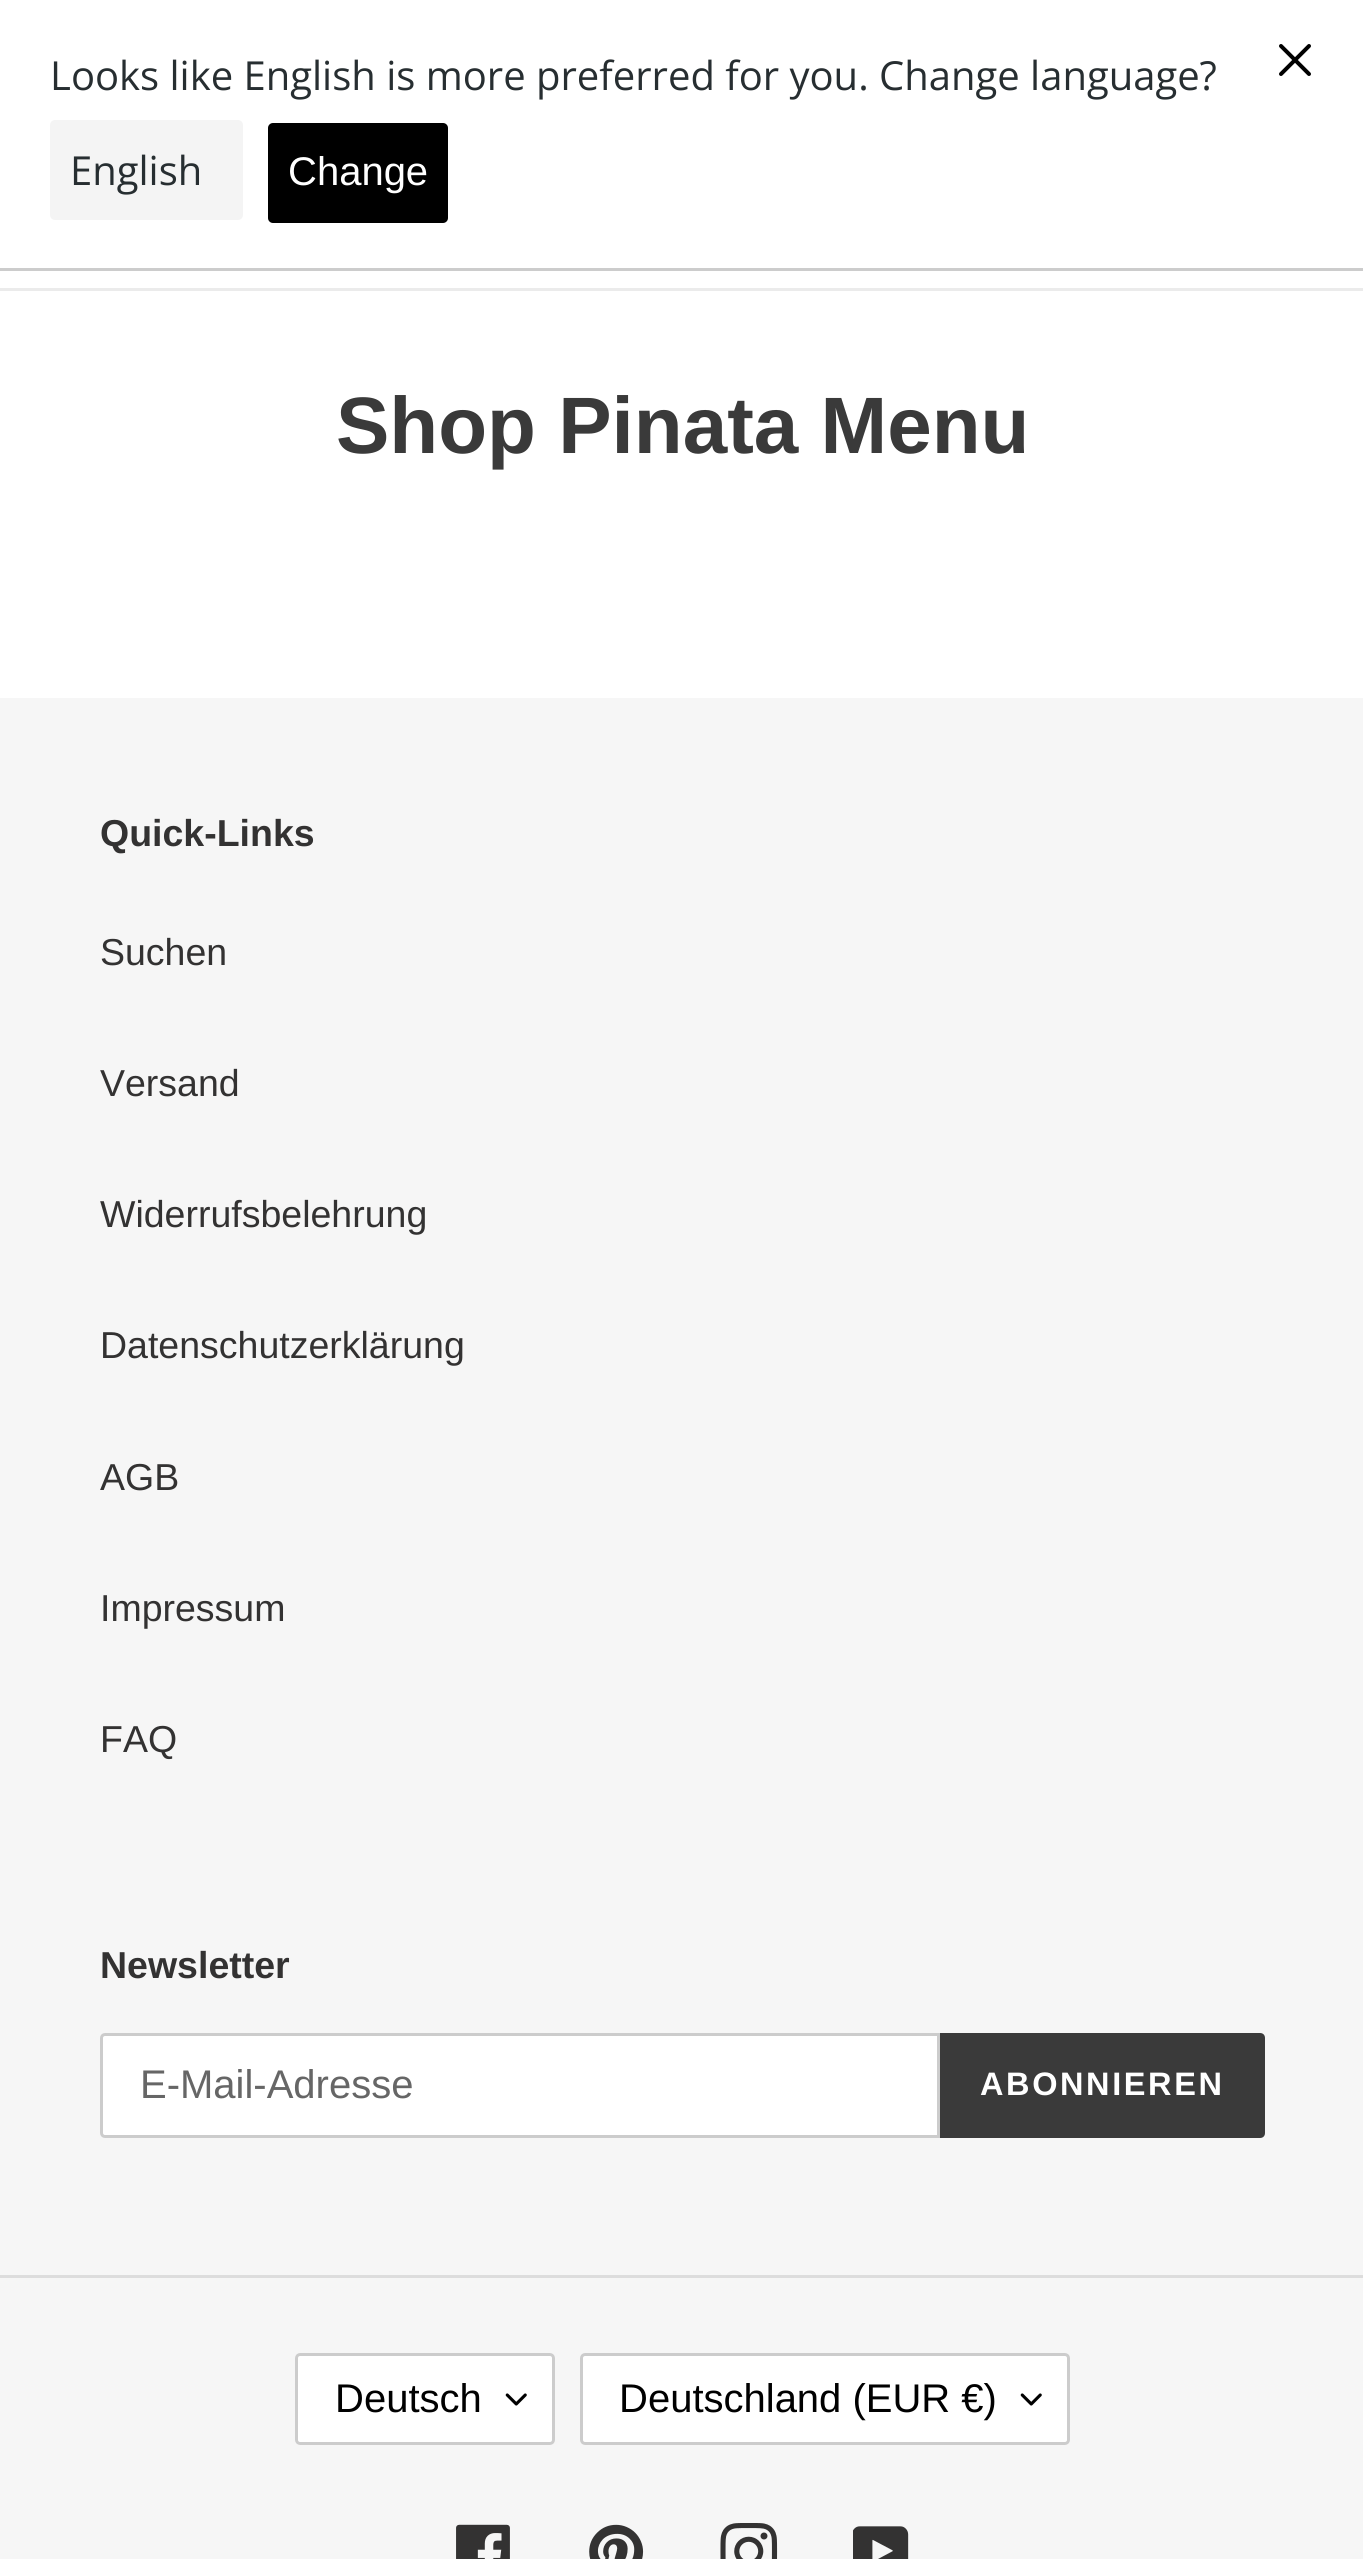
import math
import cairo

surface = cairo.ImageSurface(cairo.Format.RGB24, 1363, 2559)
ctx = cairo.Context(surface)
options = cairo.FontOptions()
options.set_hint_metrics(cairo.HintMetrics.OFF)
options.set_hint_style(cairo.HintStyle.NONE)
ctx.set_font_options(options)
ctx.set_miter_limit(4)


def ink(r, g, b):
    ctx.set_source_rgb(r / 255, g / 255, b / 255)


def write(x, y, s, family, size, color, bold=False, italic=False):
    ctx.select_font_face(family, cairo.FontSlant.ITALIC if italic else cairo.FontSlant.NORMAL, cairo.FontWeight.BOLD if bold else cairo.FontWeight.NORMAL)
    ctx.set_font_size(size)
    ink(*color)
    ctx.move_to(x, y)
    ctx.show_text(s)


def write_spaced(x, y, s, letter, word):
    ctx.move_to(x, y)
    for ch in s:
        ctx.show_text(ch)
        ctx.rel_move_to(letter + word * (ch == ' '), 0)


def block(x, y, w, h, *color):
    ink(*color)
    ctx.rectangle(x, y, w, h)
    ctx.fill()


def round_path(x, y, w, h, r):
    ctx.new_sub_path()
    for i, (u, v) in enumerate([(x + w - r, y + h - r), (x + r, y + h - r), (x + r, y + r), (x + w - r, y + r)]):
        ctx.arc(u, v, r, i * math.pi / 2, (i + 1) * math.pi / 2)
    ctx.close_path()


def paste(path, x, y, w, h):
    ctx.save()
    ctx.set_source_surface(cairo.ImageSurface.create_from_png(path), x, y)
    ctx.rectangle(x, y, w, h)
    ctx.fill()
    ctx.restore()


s1 = dict(family="Open Sans", size=40, color=(39, 46, 49))
s2 = dict(family="Liberation Sans", size=40, color=(255, 255, 255))
s3 = dict(family="Liberation Sans", size=80, color=(58, 58, 58), bold=True)
s4 = dict(family="Liberation Sans", size=37.5, color=(51, 50, 50), bold=True)
s5 = dict(family="Liberation Sans", size=37.5, color=(51, 50, 50))
s6 = dict(family="Liberation Sans", size=40, color=(102, 102, 102))
s7 = dict(family="Liberation Sans", size=40, color=(0, 0, 0))

ink(255, 255, 255)
ctx.paint()
block(0, 268, 1363, 3, 204, 204, 204)
write(50, 90, "Looks like English is more preferred for you. Change language?", **s1)
ink(244, 244, 244)
round_path(50, 120, 193, 100, 5)
ctx.fill()
write(70, 185, "English", **s1)
ink(0, 0, 0)
round_path(268, 123, 180, 100, 5)
ctx.fill()
write(288, 185, "Change", **s2)
paste("pic1.png", 1279, 44, 32, 32)
block(0, 288, 1363, 3, 235, 235, 235)
write(336, 453, "Shop Pinata Menu", **s3)
block(0, 698, 1363, 1861, 246, 246, 246)
write(100, 846, "Quick-Links", **s4)
write(100, 965, "Suchen", **s5)
write(100, 1096, "Versand", **s5)
write(100, 1227, "Widerrufsbelehrung", **s5)
write(100, 1358, "Datenschutzerklärung", **s5)
write(100, 1490, "AGB", **s5)
write(100, 1621, "Impressum", **s5)
write(100, 1752, "FAQ", **s5)
write(100, 1978, "Newsletter", **s4)
ink(255, 255, 255)
ctx.new_path()
ctx.move_to(105, 2034.5)
ctx.line_to(938.5, 2034.5)
ctx.line_to(938.5, 2136.5)
ctx.line_to(105, 2136.5)
ctx.curve_to(103, 2136.5, 101.5, 2135, 101.5, 2133)
ctx.line_to(101.5, 2038)
ctx.curve_to(101.5, 2036, 103, 2034.5, 105, 2034.5)
ctx.close_path()
ctx.fill_preserve()
ink(204, 204, 204)
ctx.set_line_width(3)
ctx.stroke()
write(140, 2098, "E-Mail-Adresse", **s6)
ink(58, 58, 58)
ctx.new_path()
ctx.move_to(940, 2033)
ctx.line_to(1260, 2033)
ctx.curve_to(1263, 2033, 1265, 2035, 1265, 2038)
ctx.line_to(1265, 2133)
ctx.curve_to(1265, 2136, 1263, 2138, 1260, 2138)
ctx.line_to(940, 2138)
ctx.close_path()
ctx.fill()
ctx.select_font_face("Liberation Sans", cairo.FontSlant.NORMAL, cairo.FontWeight.BOLD)
ctx.set_font_size(32.5)
ink(255, 255, 255)
write_spaced(980, 2095, "ABONNIEREN", 2.6, 0)
block(0, 2275, 1363, 3, 221, 221, 221)
ink(255, 255, 255)
round_path(295, 2353, 260, 92, 5)
ctx.fill()
paste("pic2.png", 505, 2393, 22, 13)
round_path(296.5, 2354.5, 257, 89, 3.5)
ink(204, 204, 204)
ctx.stroke()
write(335, 2412, "Deutsch", **s7)
ink(255, 255, 255)
round_path(580, 2353, 490, 92, 5)
ctx.fill()
paste("pic2.png", 1020, 2393, 22, 13)
round_path(581.5, 2354.5, 487, 89, 3.5)
ink(204, 204, 204)
ctx.stroke()
write(619, 2412, "Deutschland (EUR €)", **s7)
paste("pic3.png", 456, 2524, 54, 35)
paste("pic4.png", 589, 2524, 55, 35)
paste("pic5.png", 720, 2523, 58, 36)
paste("pic6.png", 853, 2526, 56, 33)
surface.write_to_png("screenshot.png")
